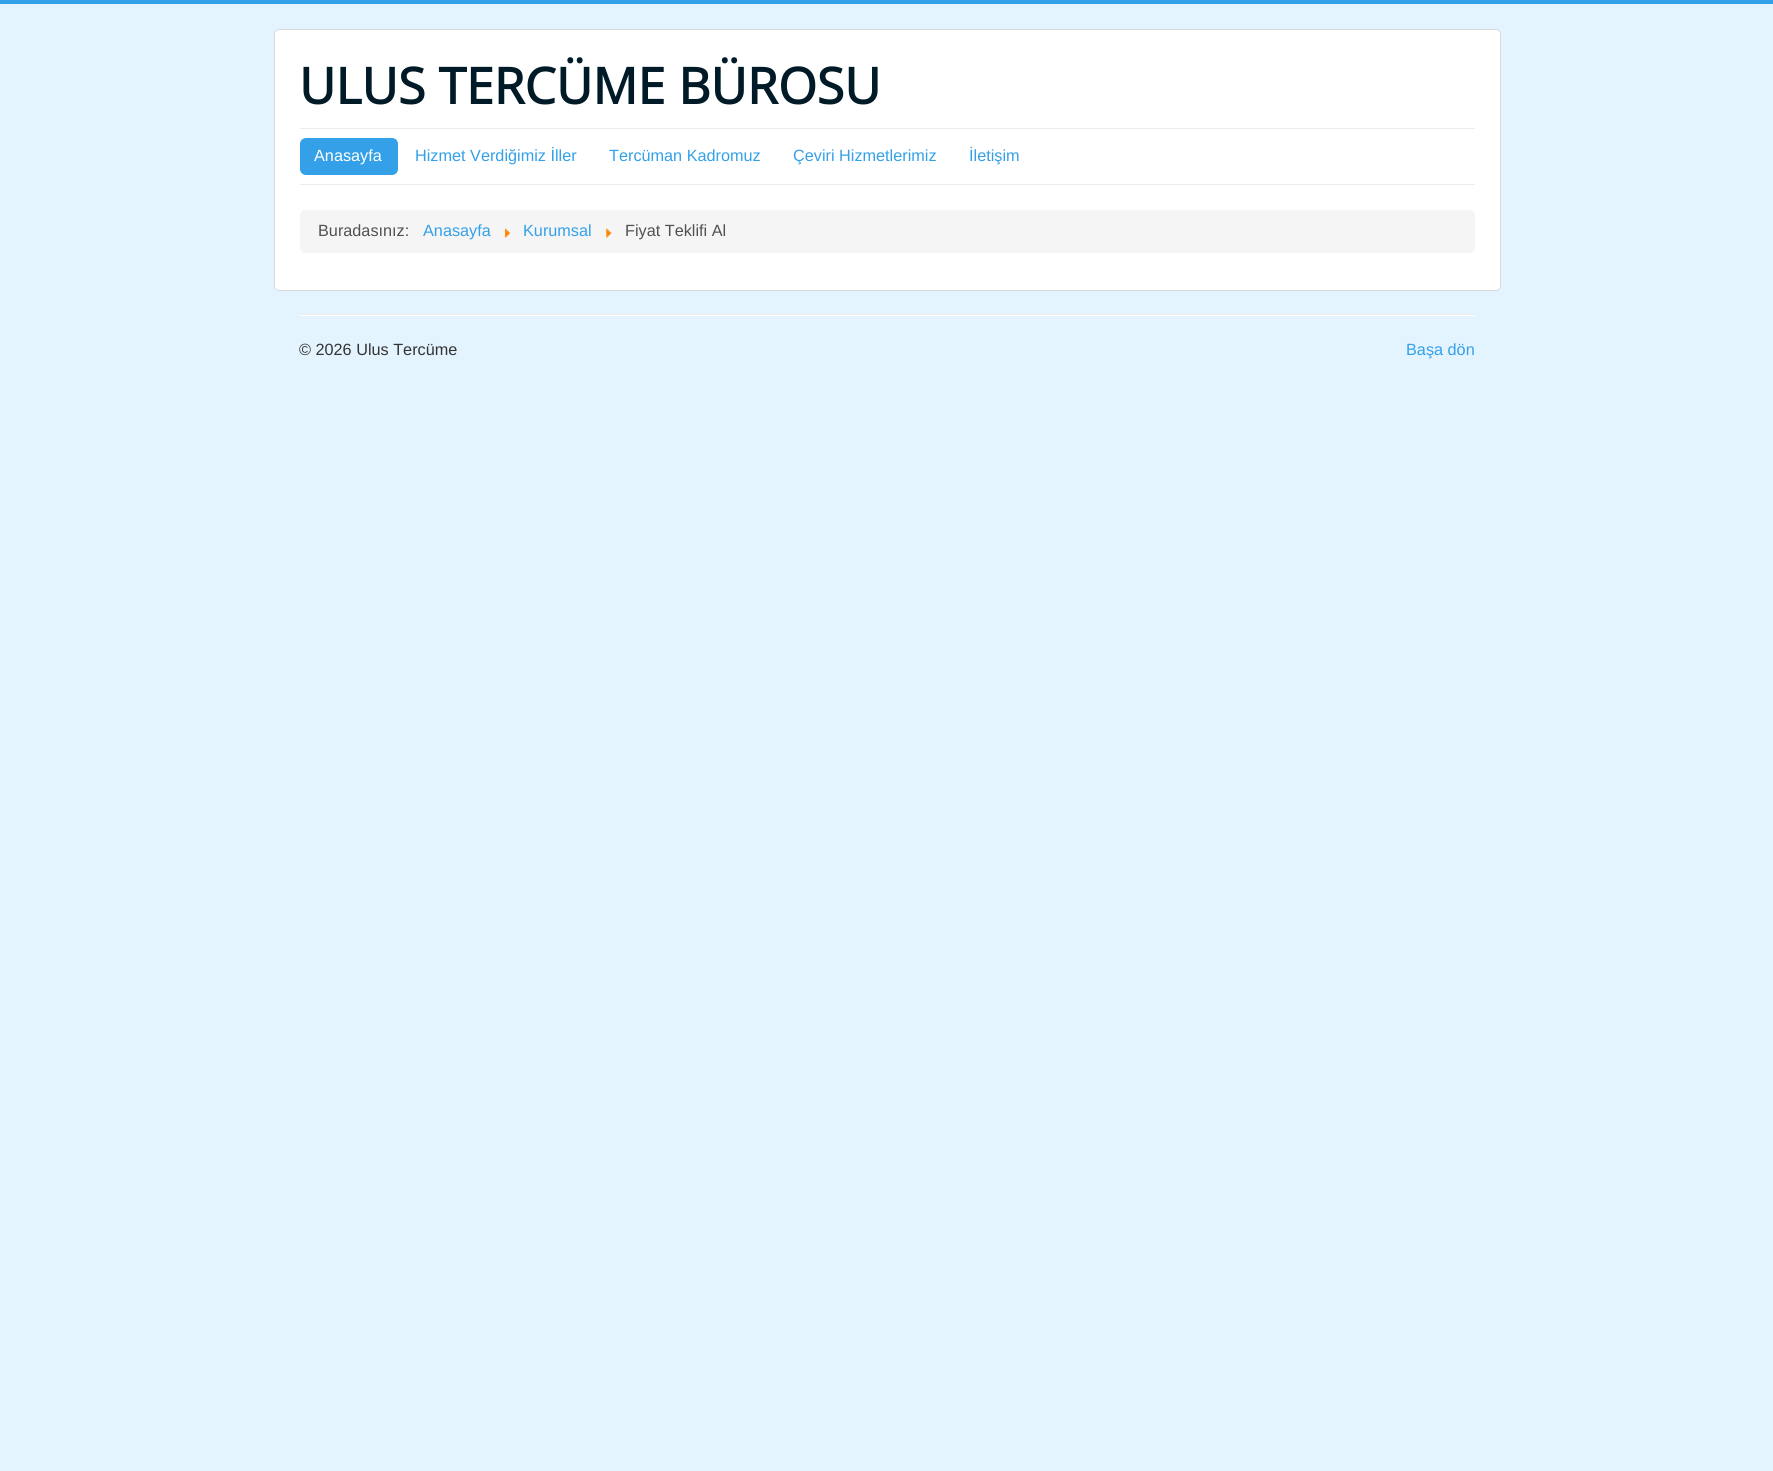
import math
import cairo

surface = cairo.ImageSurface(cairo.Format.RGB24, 1773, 1471)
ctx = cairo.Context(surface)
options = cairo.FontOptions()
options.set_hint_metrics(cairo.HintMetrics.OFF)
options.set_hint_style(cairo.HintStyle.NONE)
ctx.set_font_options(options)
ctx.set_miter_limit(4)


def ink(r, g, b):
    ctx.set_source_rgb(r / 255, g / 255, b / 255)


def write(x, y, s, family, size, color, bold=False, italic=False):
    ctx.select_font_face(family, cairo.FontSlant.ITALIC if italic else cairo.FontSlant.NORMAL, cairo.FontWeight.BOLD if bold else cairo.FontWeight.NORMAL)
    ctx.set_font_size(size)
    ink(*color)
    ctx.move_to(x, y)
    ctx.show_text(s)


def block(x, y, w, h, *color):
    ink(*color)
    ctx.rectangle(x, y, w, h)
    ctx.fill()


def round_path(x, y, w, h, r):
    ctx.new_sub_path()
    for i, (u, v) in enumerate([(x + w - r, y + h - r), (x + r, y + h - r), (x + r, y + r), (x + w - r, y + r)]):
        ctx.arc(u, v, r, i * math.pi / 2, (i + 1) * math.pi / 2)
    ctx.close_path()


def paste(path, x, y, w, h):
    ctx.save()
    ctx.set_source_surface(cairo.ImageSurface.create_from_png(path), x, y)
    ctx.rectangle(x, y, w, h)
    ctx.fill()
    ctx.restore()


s1 = dict(family="Open Sans", size=50, color=(0, 26, 39), bold=True)
s2 = dict(family="Liberation Sans", size=16.25, color=(255, 255, 255))
s3 = dict(family="Liberation Sans", size=16.25, color=(51, 160, 232))
s4 = dict(family="Liberation Sans", size=16.25, color=(81, 81, 81))
s5 = dict(family="Liberation Sans", size=16.25, color=(51, 51, 51))

ink(227, 244, 255)
ctx.paint()
block(0, 0, 1773, 4, 51, 160, 232)
ink(255, 255, 255)
round_path(274, 29, 1227, 262, 5)
ctx.fill()
round_path(274.5, 29.5, 1226, 261, 4.5)
ctx.set_source_rgba(0, 0, 0, 0.15)
ctx.set_line_width(1)
ctx.stroke()
write(299, 104, "ULUS TERCÜME BÜROSU", **s1)
block(300, 128, 1175, 1, 236, 236, 236)
block(300, 184, 1175, 1, 236, 236, 236)
ink(51, 160, 232)
round_path(300, 138, 98, 37, 6)
ctx.fill()
write(314, 161, "Anasayfa", **s2)
write(415, 161, "Hizmet Verdiğimiz İller", **s3)
write(609, 161, "Tercüman Kadromuz", **s3)
write(793, 161, "Çeviri Hizmetlerimiz", **s3)
write(969, 161, "İletişim", **s3)
ink(245, 245, 245)
round_path(300, 210, 1175, 43, 5)
ctx.fill()
write(318, 236, "Buradasınız:", **s4)
write(423, 236, "Anasayfa", **s3)
paste("pic1.png", 504, 228, 7, 10)
write(523, 236, "Kurumsal", **s3)
paste("pic2.png", 606, 228, 6, 10)
write(625, 236, "Fiyat Teklifi Al", **s4)
block(300, 314, 1175, 1, 238, 238, 238)
block(300, 315, 1175, 1, 255, 255, 255)
write(299, 355, "© 2026 Ulus Tercüme", **s5)
write(1406, 355, "Başa dön", **s3)
surface.write_to_png("screenshot.png")
